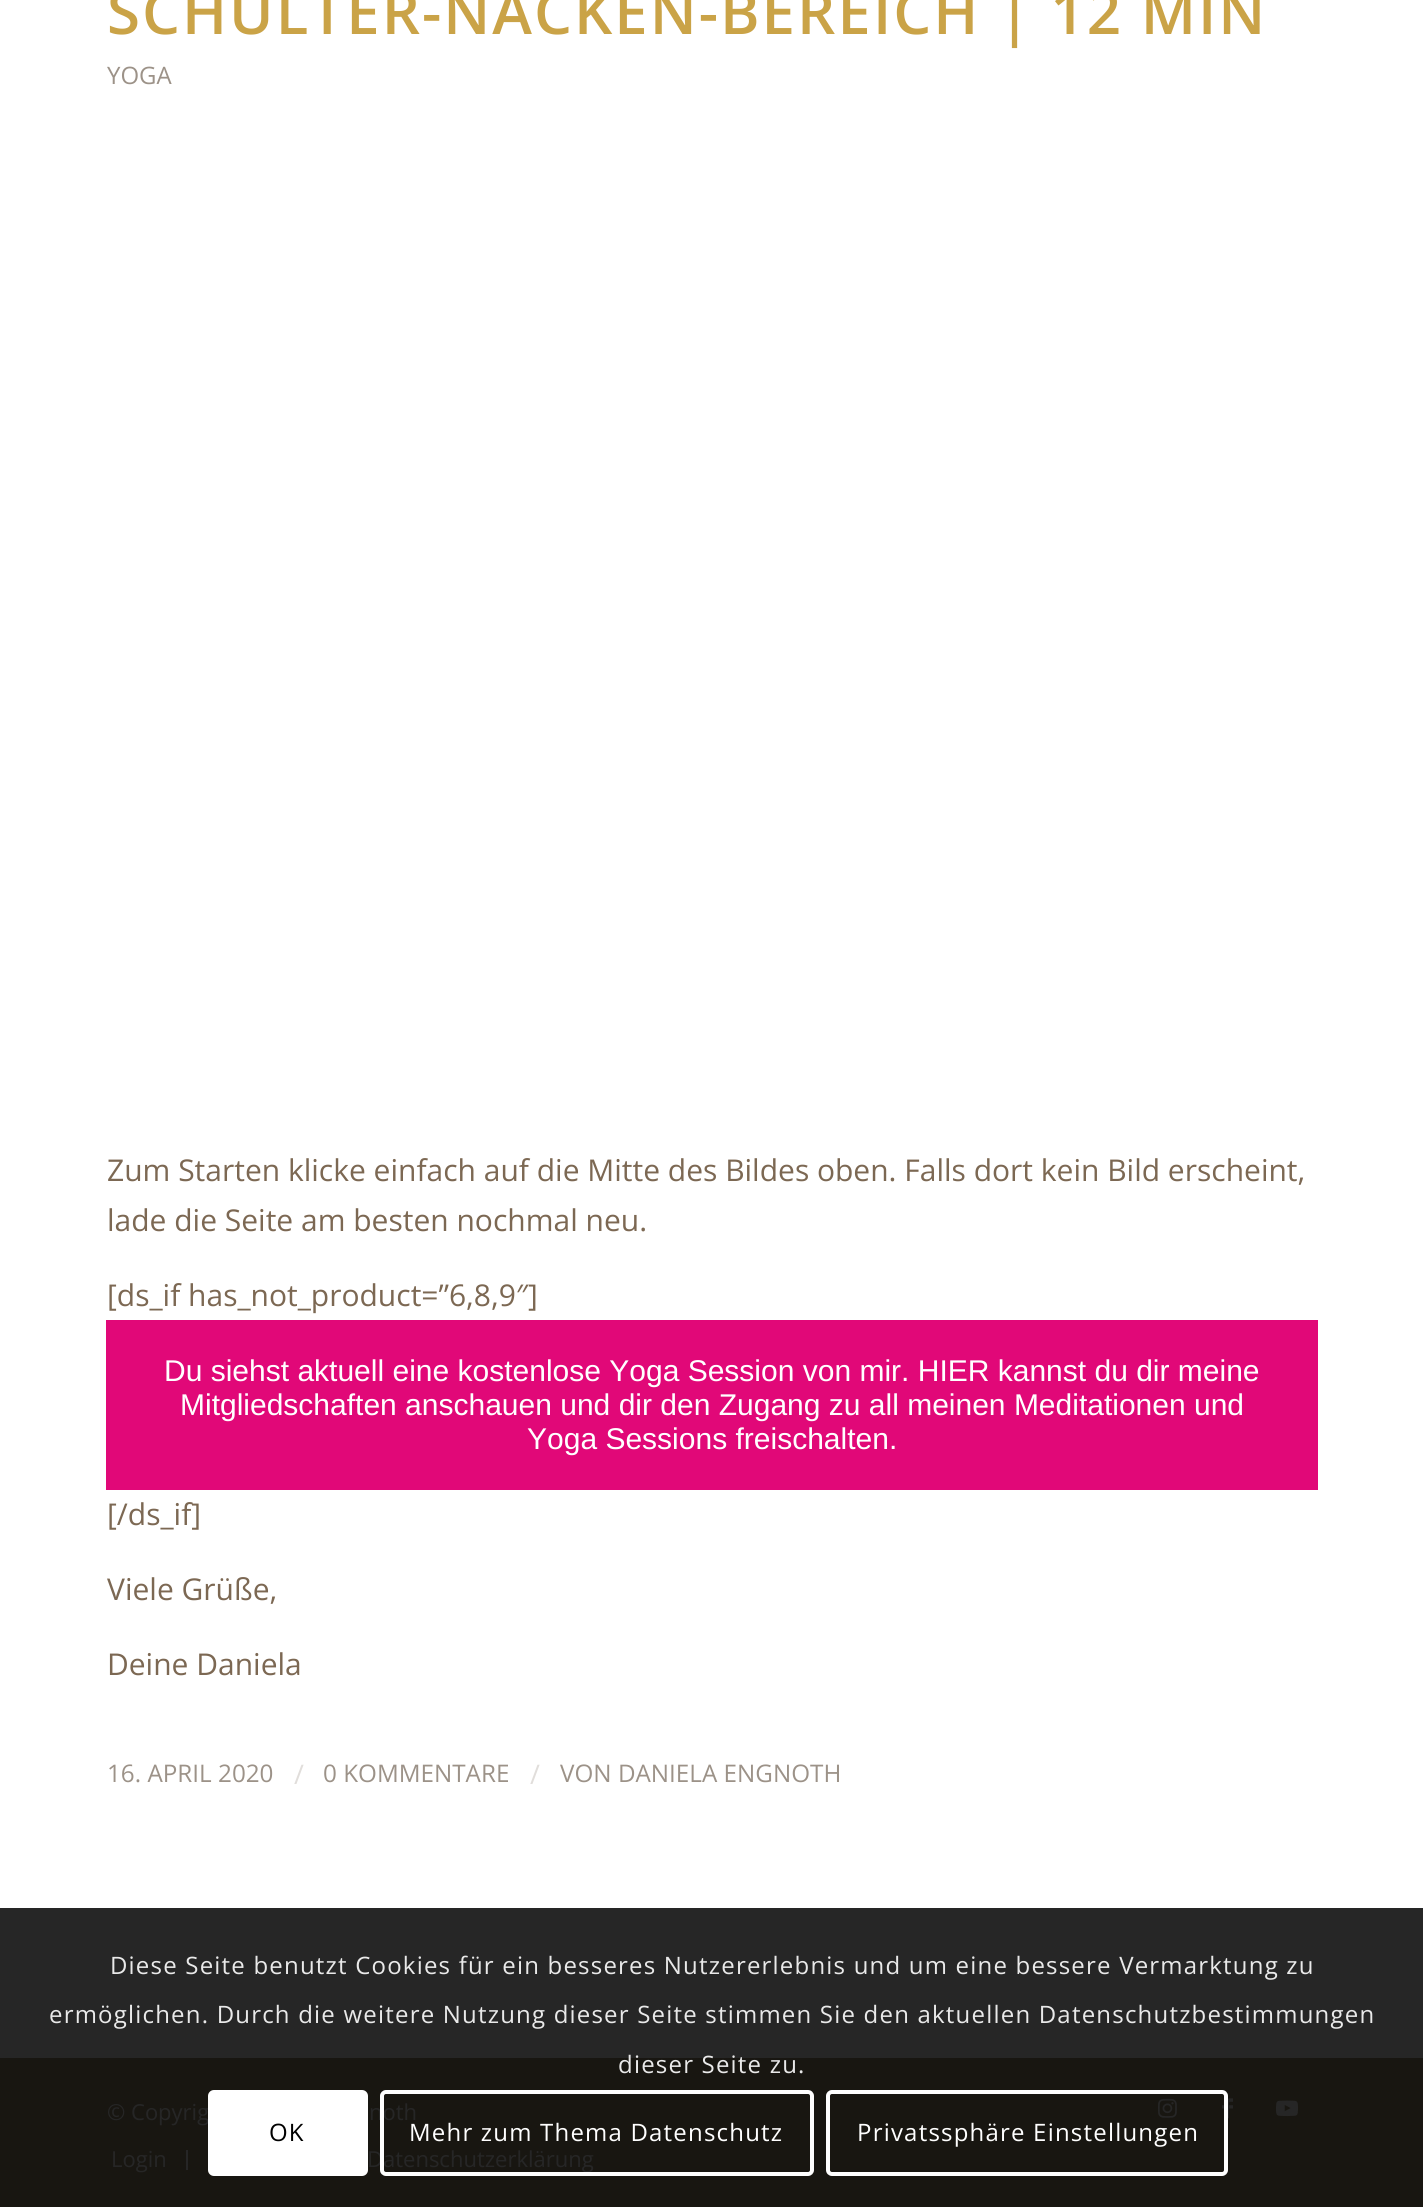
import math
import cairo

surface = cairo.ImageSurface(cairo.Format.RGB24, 1423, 2207)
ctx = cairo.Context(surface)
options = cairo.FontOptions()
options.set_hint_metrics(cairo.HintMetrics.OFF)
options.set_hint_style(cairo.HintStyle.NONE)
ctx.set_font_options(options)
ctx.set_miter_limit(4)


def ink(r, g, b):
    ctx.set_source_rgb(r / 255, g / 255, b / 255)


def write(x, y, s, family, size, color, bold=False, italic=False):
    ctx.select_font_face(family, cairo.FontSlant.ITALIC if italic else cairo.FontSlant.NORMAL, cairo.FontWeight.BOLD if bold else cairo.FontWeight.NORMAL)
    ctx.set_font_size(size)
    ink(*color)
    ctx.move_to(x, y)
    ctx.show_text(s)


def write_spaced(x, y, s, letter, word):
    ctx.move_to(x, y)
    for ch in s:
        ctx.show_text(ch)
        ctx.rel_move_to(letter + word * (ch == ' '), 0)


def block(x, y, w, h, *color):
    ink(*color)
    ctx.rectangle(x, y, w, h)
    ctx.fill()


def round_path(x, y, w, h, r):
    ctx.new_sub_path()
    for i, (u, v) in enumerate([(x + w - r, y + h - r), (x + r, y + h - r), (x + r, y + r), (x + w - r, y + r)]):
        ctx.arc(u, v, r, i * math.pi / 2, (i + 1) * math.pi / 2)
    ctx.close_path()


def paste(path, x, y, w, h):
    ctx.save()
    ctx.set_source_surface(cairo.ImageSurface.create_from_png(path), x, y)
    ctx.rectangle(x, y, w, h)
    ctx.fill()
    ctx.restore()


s1 = dict(family="Open Sans", size=24, color=(156, 146, 136))
s2 = dict(family="Open Sans", size=30, color=(124, 104, 83))
s3 = dict(family="Liberation Sans", size=30, color=(255, 255, 255))
s4 = dict(family="Open Sans", size=24.25, color=(156, 146, 136))
s5 = dict(family="Open Sans", size=27, color=(225, 222, 219))
s6 = dict(family="Open Sans", size=22, color=(38, 38, 38))

ink(255, 255, 255)
ctx.paint()
block(0, 1908, 1423, 150, 38, 38, 38)
ctx.select_font_face("Open Sans SemiBold")
ctx.set_font_size(60)
ink(202, 163, 71)
write_spaced(107, 34, "SCHULTER-NACKEN-BEREICH | 12 MIN", 2, 0)
write(107, 84, "YOGA", **s1)
write(107, 1181, "Zum Starten klicke einfach auf die Mitte des Bildes oben. Falls dort kein Bild erscheint,", **s2)
write(107, 1231, "lade die Seite am besten nochmal neu.", **s2)
write(107, 1306, "[ds_if has_not_product=”6,8,9″]", **s2)
block(106, 1320, 1212, 170, 225, 8, 120)
write(164, 1381, "Du siehst aktuell eine kostenlose Yoga Session von mir. HIER kannst du dir meine", **s3)
write(180, 1415, "Mitgliedschaften anschauen und dir den Zugang zu all meinen Meditationen und", **s3)
write(527, 1449, "Yoga Sessions freischalten.", **s3)
write(107, 1525, "[/ds_if]", **s2)
write(107, 1600, "Viele Grüße,", **s2)
write(107, 1675, "Deine Daniela", **s2)
write(107, 1782, "16. APRIL 2020", **s4)
write(294, 1784, "/", **s5)
write(323, 1782, "0 KOMMENTARE", **s4)
write(530, 1784, "/", **s5)
write(560, 1782, "VON DANIELA ENGNOTH", **s4)
block(0, 2058, 1423, 149, 24, 22, 17)
write(107, 2120, "© Copyrig", **s6)
write(369, 2120, "noth", **s6)
paste("pic1.png", 1158, 2098, 19, 20)
paste("pic2.png", 1222, 2098, 11, 21)
paste("pic3.png", 1276, 2100, 22, 17)
write(111, 2167, "Login", **s6)
block(186, 2150, 2, 20, 38, 38, 38)
write(367, 2167, "Datenschutzerklärung", **s6)
ctx.set_font_size(24)
ink(233, 233, 233)
write_spaced(110, 1974, "Diese Seite benutzt Cookies für ein besseres Nutzererlebnis und um eine bessere Vermarktung zu", 1.2, 0)
write_spaced(49, 2023, "ermöglichen. Durch die weitere Nutzung dieser Seite stimmen Sie den aktuellen Datenschutzbestimmungen", 1.2, 0)
write_spaced(618, 2073, "dieser Seite zu.", 1.2, 0)
ink(255, 255, 255)
round_path(208, 2090, 160, 86, 6)
ctx.fill()
ink(0, 0, 0)
write_spaced(269, 2141, "OK", 1.2, 0)
round_path(382, 2092, 430, 82, 4)
ink(255, 255, 255)
ctx.set_line_width(4)
ctx.stroke()
write_spaced(409, 2141, "Mehr zum Thema Datenschutz", 1.2, 0)
round_path(828, 2092, 398, 82, 4)
ctx.stroke()
write_spaced(857, 2141, "Privatssphäre Einstellungen", 1.2, 0)
surface.write_to_png("screenshot.png")
